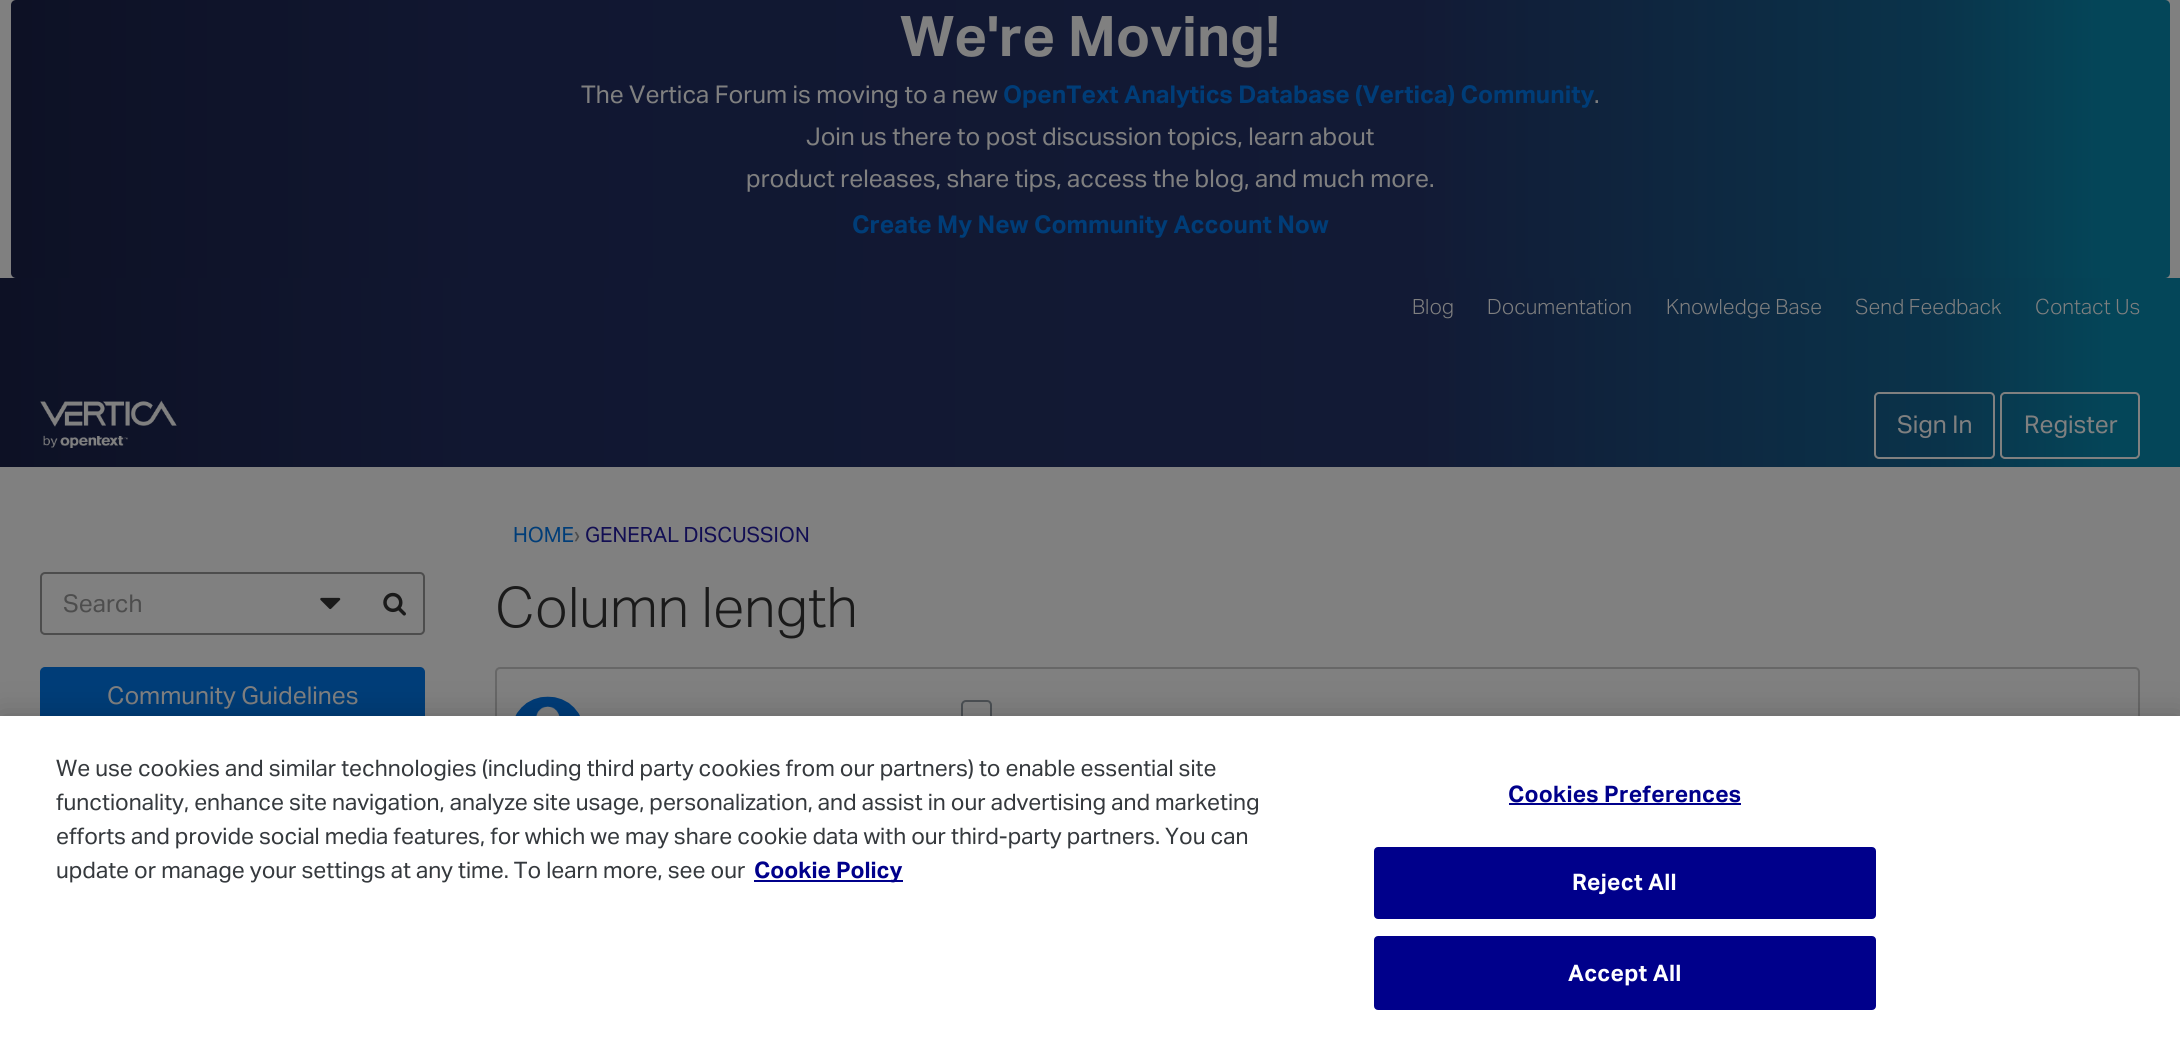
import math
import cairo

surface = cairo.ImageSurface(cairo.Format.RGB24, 2180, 1044)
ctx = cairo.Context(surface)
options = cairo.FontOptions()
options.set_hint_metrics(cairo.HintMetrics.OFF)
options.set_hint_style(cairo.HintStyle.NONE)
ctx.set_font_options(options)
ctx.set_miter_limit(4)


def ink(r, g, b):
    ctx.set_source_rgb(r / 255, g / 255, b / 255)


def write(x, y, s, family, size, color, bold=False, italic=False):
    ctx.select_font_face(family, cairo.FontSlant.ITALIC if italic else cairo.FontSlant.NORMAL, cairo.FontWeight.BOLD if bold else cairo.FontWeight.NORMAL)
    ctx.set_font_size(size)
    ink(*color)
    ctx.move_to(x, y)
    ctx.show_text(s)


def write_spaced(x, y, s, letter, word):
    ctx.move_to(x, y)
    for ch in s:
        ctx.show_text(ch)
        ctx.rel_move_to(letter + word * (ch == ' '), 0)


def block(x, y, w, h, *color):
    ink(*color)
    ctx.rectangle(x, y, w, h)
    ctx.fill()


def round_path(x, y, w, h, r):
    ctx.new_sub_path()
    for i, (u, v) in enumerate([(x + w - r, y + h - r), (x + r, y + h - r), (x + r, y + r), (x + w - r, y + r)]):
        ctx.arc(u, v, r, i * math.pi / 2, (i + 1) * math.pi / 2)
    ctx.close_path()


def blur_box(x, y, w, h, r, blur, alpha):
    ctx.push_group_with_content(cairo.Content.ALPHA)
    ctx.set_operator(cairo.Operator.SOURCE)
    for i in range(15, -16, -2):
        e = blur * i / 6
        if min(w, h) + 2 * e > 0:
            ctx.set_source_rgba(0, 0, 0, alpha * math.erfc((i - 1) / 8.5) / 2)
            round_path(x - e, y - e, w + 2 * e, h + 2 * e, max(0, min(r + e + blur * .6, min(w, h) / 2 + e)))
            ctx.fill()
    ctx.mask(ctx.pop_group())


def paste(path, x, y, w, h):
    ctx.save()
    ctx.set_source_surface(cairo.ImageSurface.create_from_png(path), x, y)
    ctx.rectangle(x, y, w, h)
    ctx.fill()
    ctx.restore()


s1 = dict(family="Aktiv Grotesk", size=56, color=(128, 128, 128), bold=True)
s2 = dict(family="Aktiv Grotesk", size=24.5, color=(128, 128, 128))
s3 = dict(family="Aktiv Grotesk", size=24.5, color=(0, 61, 120), bold=True)
s4 = dict(family="Aktiv Grotesk Light", size=21, color=(128, 128, 128))
s5 = dict(family="Aktiv Grotesk", size=21, color=(0, 61, 120))
s6 = dict(family="Aktiv Grotesk", size=21, color=(77, 77, 77))
s7 = dict(family="Aktiv Grotesk", size=21, color=(18, 14, 83))
s8 = dict(family="Aktiv Grotesk", size=24.5, color=(77, 77, 77))
s9 = dict(family="Aktiv Grotesk Light", size=56, color=(26, 26, 26))
s10 = dict(family="Aktiv Grotesk", size=22.75, color=(53, 57, 61))
s11 = dict(family="Aktiv Grotesk", size=22.75, color=(0, 0, 139), bold=True)

ink(128, 128, 128)
ctx.paint()
gradient = cairo.LinearGradient(11, 139, 2170, 139)
gradient.add_color_stop_rgba(0, 0.051, 0.067, 0.145, 1)
gradient.add_color_stop_rgba(0.22, 0.067, 0.09, 0.192, 1)
gradient.add_color_stop_rgba(0.65, 0.071, 0.102, 0.208, 1)
gradient.add_color_stop_rgba(0.89, 0.039, 0.2, 0.29, 1)
gradient.add_color_stop_rgba(0.97, 0.016, 0.275, 0.349, 1)
ctx.set_source(gradient)
round_path(11, 0, 2159, 278, 5)
ctx.fill()
write(900, 56, "We're Moving!", **s1)
write(581, 103, "The Vertica Forum is moving to a new", **s2)
write(1003, 103, "OpenText Analytics Database (Vertica) Community", **s3)
write(1594, 103, ".", **s2)
write(806, 145, "Join us there to post discussion topics, learn about", **s2)
write(746, 187, "product releases, share tips, access the blog, and much more.", **s2)
write(852, 233, "Create My New Community Account Now", **s3)
gradient = cairo.LinearGradient(0, 331, 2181, 331)
gradient.add_color_stop_rgba(0, 0.051, 0.067, 0.145, 1)
gradient.add_color_stop_rgba(0.22, 0.067, 0.09, 0.192, 1)
gradient.add_color_stop_rgba(0.65, 0.071, 0.102, 0.208, 1)
gradient.add_color_stop_rgba(0.89, 0.039, 0.2, 0.29, 1)
gradient.add_color_stop_rgba(0.97, 0.016, 0.275, 0.349, 1)
ctx.set_source(gradient)
ctx.rectangle(0, 278, 2180, 105)
ctx.fill()
write(1412, 314, "Blog", **s4)
write(1487, 314, "Documentation", **s4)
write(1666, 314, "Knowledge Base", **s4)
write(1855, 314, "Send Feedback", **s4)
write(2035, 314, "Contact Us", **s4)
gradient = cairo.LinearGradient(0, 425, 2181, 425)
gradient.add_color_stop_rgba(0, 0.051, 0.067, 0.145, 1)
gradient.add_color_stop_rgba(0.22, 0.067, 0.09, 0.192, 1)
gradient.add_color_stop_rgba(0.65, 0.071, 0.102, 0.208, 1)
gradient.add_color_stop_rgba(0.89, 0.039, 0.2, 0.29, 1)
gradient.add_color_stop_rgba(0.97, 0.016, 0.275, 0.349, 1)
ctx.set_source(gradient)
ctx.rectangle(0, 383, 2180, 84)
ctx.fill()
paste("pic1.png", 40, 400, 137, 48)
round_path(1875, 393, 119, 65, 4)
ink(128, 128, 128)
ctx.stroke()
write(1897, 433, "Sign In", **s2)
round_path(2001, 393, 138, 65, 4)
ctx.stroke()
write(2024, 433, "Register", **s2)
write(513, 542, "HOME", **s5)
write(574, 542, "›", **s6)
write(585, 542, "GENERAL DISCUSSION", **s7)
round_path(41, 573, 383, 61, 4)
ink(77, 77, 77)
ctx.stroke()
write(63, 612, "Search", **s8)
paste("pic2.png", 320, 597, 21, 13)
paste("pic3.png", 383, 592, 23, 24)
ink(0, 61, 120)
round_path(41, 668, 383, 56, 4)
ctx.fill_preserve()
ctx.stroke()
write(107, 704, "Community Guidelines", **s2)
write(495, 627, "Column length", **s9)
round_path(496, 668, 1643, 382, 4)
ink(103, 103, 103)
ctx.stroke()
paste("pic4.png", 515, 696, 65, 20)
round_path(962, 701, 29, 33, 4)
ink(75, 80, 84)
ctx.stroke()
ink(0, 0, 0)
blur_box(0, 716, 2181, 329, 0, 16, 0.2)
block(0, 716, 2180, 328, 255, 255, 255)
write(56, 776, "We use cookies and similar technologies (including third party cookies from our partners) to enable essential site", **s10)
write(56, 810, "functionality, enhance site navigation, analyze site usage, personalization, and assist in our advertising and marketing", **s10)
write(56, 844, "efforts and provide social media features, for which we may share cookie data with our third-party partners. You can", **s10)
write(56, 878, "update or manage your settings at any time. To learn more, see our", **s10)
block(754, 880, 149, 2, 0, 0, 139)
write(754, 878, "Cookie Policy", **s11)
write_spaced(1508, 802, "Cookies Preferences", 0.25, 0)
block(1509, 803, 232, 2, 0, 0, 139)
round_path(1375, 848, 500, 70, 3)
ctx.fill_preserve()
ctx.stroke()
ink(255, 255, 255)
write_spaced(1572, 890, "Reject All", 0.25, 0)
ink(0, 0, 139)
round_path(1375, 937, 500, 72, 3)
ctx.fill_preserve()
ctx.stroke()
ink(255, 255, 255)
write_spaced(1568, 981, "Accept All", 0.25, 0)
surface.write_to_png("screenshot.png")
